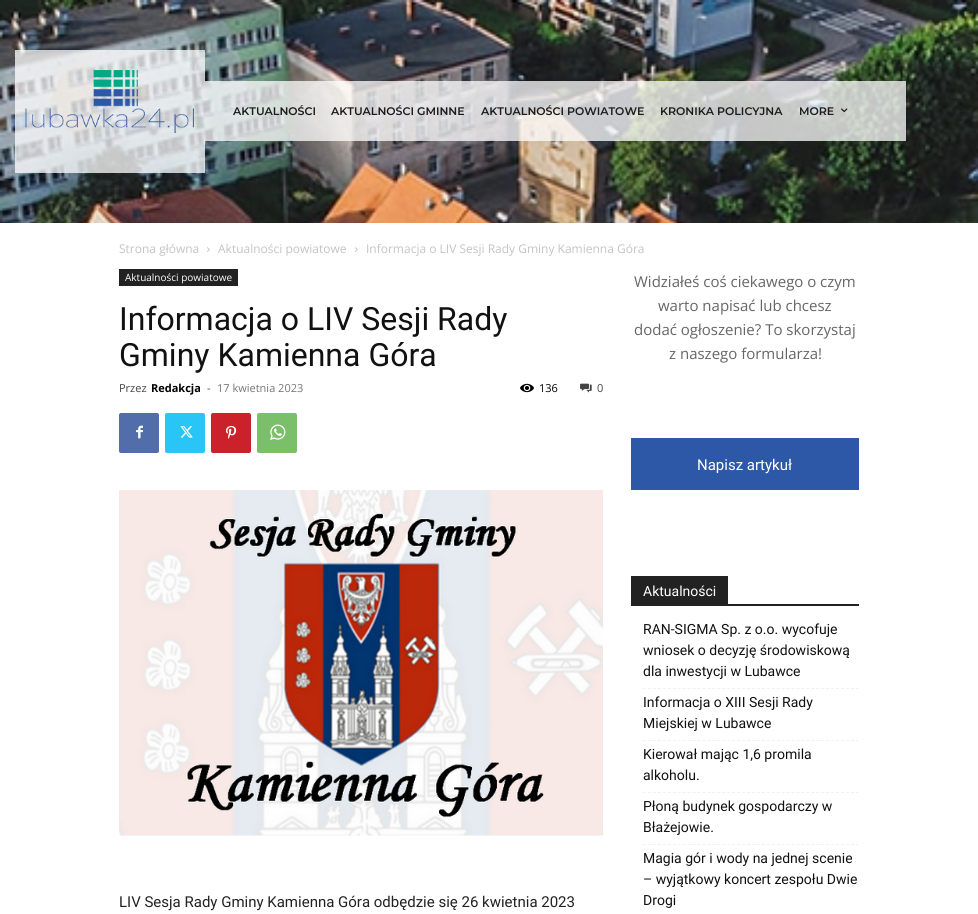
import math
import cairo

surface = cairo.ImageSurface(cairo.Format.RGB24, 978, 914)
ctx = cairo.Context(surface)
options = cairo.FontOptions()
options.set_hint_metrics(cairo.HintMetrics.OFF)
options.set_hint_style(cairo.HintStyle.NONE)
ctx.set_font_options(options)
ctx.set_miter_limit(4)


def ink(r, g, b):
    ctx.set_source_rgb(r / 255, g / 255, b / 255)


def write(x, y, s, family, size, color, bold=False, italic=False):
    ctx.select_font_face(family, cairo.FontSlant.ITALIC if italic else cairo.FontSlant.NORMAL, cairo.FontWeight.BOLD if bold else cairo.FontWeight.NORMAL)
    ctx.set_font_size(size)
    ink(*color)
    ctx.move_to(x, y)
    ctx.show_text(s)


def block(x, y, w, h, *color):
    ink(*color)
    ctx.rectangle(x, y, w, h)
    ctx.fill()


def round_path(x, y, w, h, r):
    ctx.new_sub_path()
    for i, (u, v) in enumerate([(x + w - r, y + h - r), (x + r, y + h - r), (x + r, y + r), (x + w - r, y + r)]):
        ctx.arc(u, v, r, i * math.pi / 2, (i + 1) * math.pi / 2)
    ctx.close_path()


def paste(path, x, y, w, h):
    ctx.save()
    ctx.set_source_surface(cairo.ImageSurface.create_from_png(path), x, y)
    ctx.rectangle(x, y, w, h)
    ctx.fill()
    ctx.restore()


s1 = dict(family="Montserrat SemiBold", size=11, color=(28, 28, 28))
s2 = dict(family="Open Sans", size=12, color=(195, 195, 195))
s3 = dict(family="Open Sans", size=10, color=(255, 255, 255))
s4 = dict(family="Roboto", size=32, color=(17, 17, 17))
s5 = dict(family="Open Sans", size=11, color=(68, 68, 68))
s6 = dict(family="Open Sans", size=11, color=(0, 0, 0), bold=True)
s7 = dict(family="Open Sans", size=11, color=(118, 118, 118))
s8 = dict(family="Open Sans", size=11, color=(0, 0, 0))
s9 = dict(family="Roboto", size=15, color=(34, 34, 34))
s10 = dict(family="Open Sans", size=15, color=(102, 102, 102))
s11 = dict(family="Roboto", size=15, color=(255, 255, 255))
s12 = dict(family="Roboto", size=14, color=(255, 255, 255))
s13 = dict(family="Roboto", size=14, color=(17, 17, 17))

ink(255, 255, 255)
ctx.paint()
paste("pic1.png", 0, 0, 978, 223)
ctx.set_source_rgba(1, 1, 1, 0.75)
ctx.rectangle(15, 50, 190, 123)
ctx.fill()
paste("pic2.png", 25, 70, 169, 63)
ctx.rectangle(205, 81, 701, 60)
ctx.fill()
write(233, 115, "AKTUALNOŚCI", **s1)
write(331, 115, "AKTUALNOŚCI GMINNE", **s1)
write(481, 115, "AKTUALNOŚCI POWIATOWE", **s1)
write(660, 115, "KRONIKA POLICYJNA", **s1)
write(799, 115, "MORE", **s1)
paste("pic3.png", 841, 108, 7, 5)
write(119, 253, "Strona główna", **s2)
paste("pic4.png", 207, 247, 3, 5)
write(218, 253, "Aktualności powiatowe", **s2)
paste("pic4.png", 355, 247, 3, 5)
write(366, 253, "Informacja o LIV Sesji Rady Gminy Kamienna Góra", **s2)
block(119, 269, 119, 17, 34, 34, 34)
write(125, 281, "Aktualności powiatowe", **s3)
write(119, 330, "Informacja o LIV Sesji Rady", **s4)
write(119, 366, "Gminy Kamienna Góra", **s4)
write(119, 392, "Przez", **s5)
write(151, 392, "Redakcja", **s6)
write(207, 392, "-", **s5)
write(217, 392, "17 kwietnia 2023", **s7)
paste("pic5.png", 520, 383, 14, 10)
write(539, 392, "136", **s8)
paste("pic6.png", 580, 383, 12, 10)
write(597, 392, "0", **s5)
ink(81, 110, 171)
round_path(119, 413, 40, 40, 2)
ctx.fill()
paste("pic7.png", 136, 425, 7, 14)
ink(41, 197, 246)
round_path(165, 413, 40, 40, 2)
ctx.fill()
paste("pic8.png", 180, 426, 13, 12)
ink(202, 33, 42)
round_path(211, 413, 40, 40, 2)
ctx.fill()
paste("pic9.png", 226, 425, 11, 14)
ink(123, 191, 106)
round_path(257, 413, 40, 40, 2)
ctx.fill()
paste("pic10.png", 270, 424, 16, 16)
paste("pic11.png", 119, 490, 484, 346)
write(119, 907, "LIV Sesja Rady Gminy Kamienna Góra odbędzie się 26 kwietnia 2023", **s9)
write(634, 287, "Widziałeś coś ciekawego o czym", **s10)
write(658, 311, "warto napisać lub chcesz", **s10)
write(634, 335, "dodać ogłoszenie? To skorzystaj", **s10)
write(669, 359, "z naszego formularza!", **s10)
block(631, 438, 228, 52, 45, 88, 167)
write(697, 470, "Napisz artykuł", **s11)
block(631, 604, 228, 2, 34, 34, 34)
block(631, 576, 97, 28, 34, 34, 34)
write(643, 596, "Aktualności", **s12)
ctx.new_path()
ctx.move_to(643, 688.5)
ctx.line_to(859, 688.5)
ink(241, 241, 241)
ctx.set_line_width(1)
ctx.set_dash([3, 1.95])
ctx.stroke()
write(643, 634, "RAN-SIGMA Sp. z o.o. wycofuje", **s13)
write(643, 655, "wniosek o decyzję środowiskową", **s13)
write(643, 676, "dla inwestycji w Lubawce", **s13)
ctx.new_path()
ctx.move_to(643, 740.5)
ctx.line_to(859, 740.5)
ink(241, 241, 241)
ctx.stroke()
write(643, 707, "Informacja o XIII Sesji Rady", **s13)
write(643, 728, "Miejskiej w Lubawce", **s13)
ctx.new_path()
ctx.move_to(643, 792.5)
ctx.line_to(859, 792.5)
ink(241, 241, 241)
ctx.stroke()
write(643, 759, "Kierował mając 1,6 promila", **s13)
write(643, 780, "alkoholu.", **s13)
ctx.new_path()
ctx.move_to(643, 844.5)
ctx.line_to(859, 844.5)
ink(241, 241, 241)
ctx.stroke()
write(643, 811, "Płoną budynek gospodarczy w", **s13)
write(643, 832, "Błażejowie.", **s13)
write(643, 863, "Magia gór i wody na jednej scenie", **s13)
write(643, 884, "– wyjątkowy koncert zespołu Dwie", **s13)
write(643, 905, "Drogi", **s13)
surface.write_to_png("screenshot.png")
